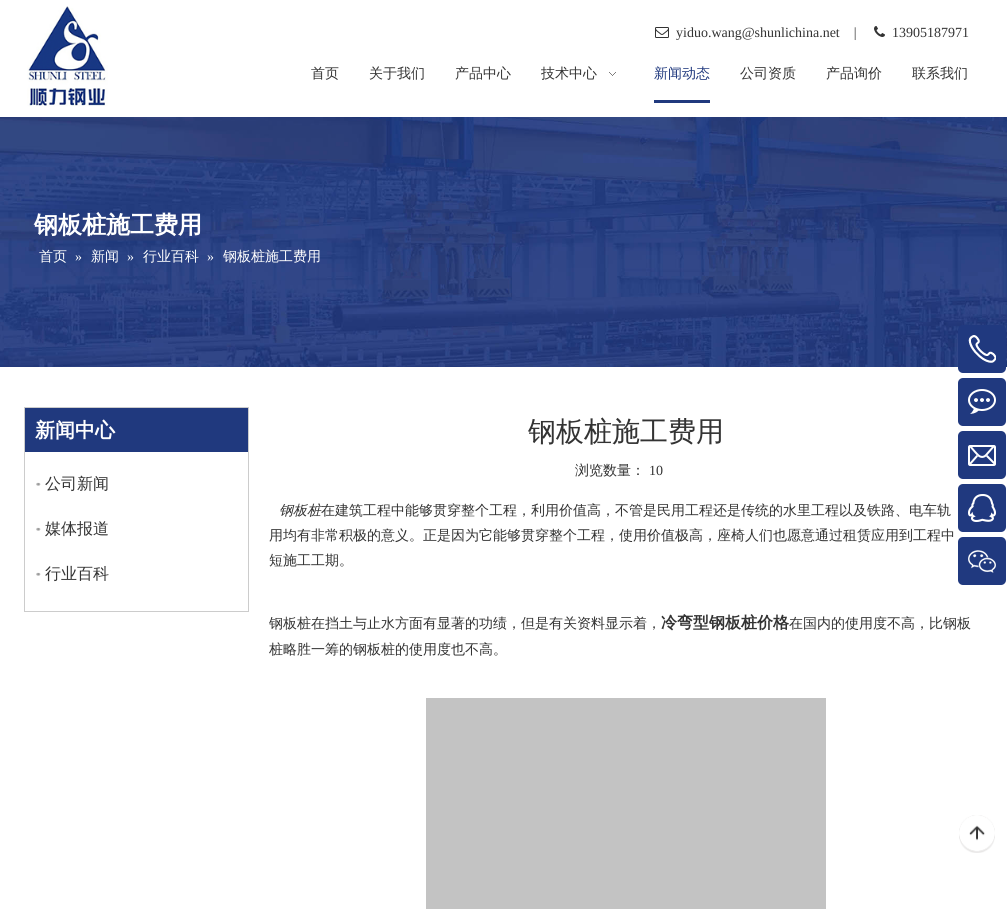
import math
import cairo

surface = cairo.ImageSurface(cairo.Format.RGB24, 1007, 909)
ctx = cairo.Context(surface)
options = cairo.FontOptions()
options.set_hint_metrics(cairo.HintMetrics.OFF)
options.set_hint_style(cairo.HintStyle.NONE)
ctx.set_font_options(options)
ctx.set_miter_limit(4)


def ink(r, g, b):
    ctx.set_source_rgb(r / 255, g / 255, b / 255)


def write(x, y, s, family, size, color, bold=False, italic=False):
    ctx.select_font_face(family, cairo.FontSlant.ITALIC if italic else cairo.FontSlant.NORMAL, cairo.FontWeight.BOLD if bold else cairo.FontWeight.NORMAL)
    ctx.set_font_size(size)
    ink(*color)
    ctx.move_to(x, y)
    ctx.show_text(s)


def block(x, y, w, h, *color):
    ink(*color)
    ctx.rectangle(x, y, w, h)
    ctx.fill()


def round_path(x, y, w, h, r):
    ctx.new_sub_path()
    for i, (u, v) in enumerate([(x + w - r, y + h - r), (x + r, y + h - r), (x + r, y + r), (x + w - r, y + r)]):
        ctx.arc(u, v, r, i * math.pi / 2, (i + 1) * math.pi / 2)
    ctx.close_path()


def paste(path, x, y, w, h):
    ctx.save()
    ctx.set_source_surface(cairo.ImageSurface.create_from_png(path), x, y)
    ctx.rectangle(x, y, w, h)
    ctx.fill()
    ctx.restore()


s1 = dict(family="Liberation Serif", size=14, color=(51, 51, 51))
s2 = dict(family="WenQuanYi Zen Hei Medium", size=14, color=(51, 51, 51))
s3 = dict(family="WenQuanYi Zen Hei Medium", size=14, color=(32, 57, 126))
s4 = dict(family="WenQuanYi Zen Hei", size=24, color=(255, 255, 255), bold=True)
s5 = dict(family="WenQuanYi Zen Hei Medium", size=14, color=(255, 255, 255))
s6 = dict(family="Liberation Serif", size=14, color=(255, 255, 255))
s7 = dict(family="WenQuanYi Zen Hei", size=20, color=(255, 255, 255), bold=True)
s8 = dict(family="WenQuanYi Zen Hei Medium", size=16, color=(51, 51, 51))
s9 = dict(family="WenQuanYi Zen Hei Medium", size=28, color=(51, 51, 51))
s10 = dict(family="WenQuanYi Zen Hei Medium", size=14, color=(51, 51, 51), italic=True)
s11 = dict(family="WenQuanYi Zen Hei", size=16, color=(51, 51, 51), bold=True)

ink(255, 255, 255)
ctx.paint()
paste("pic1.png", 27, 6, 81, 101)
paste("pic2.png", 655, 27, 14, 11)
write(676, 37, "yiduo.wang@shunlichina.net    |", **s1)
paste("pic3.png", 874, 26, 11, 11)
write(892, 37, "13905187971", **s1)
write(311, 78, "首页", **s2)
write(369, 78, "关于我们", **s2)
write(455, 78, "产品中心", **s2)
write(541, 78, "技术中心", **s2)
paste("pic4.png", 609, 72, 7, 4)
block(654, 100, 56, 3, 32, 57, 126)
write(654, 78, "新闻动态", **s3)
write(740, 78, "公司资质", **s2)
write(826, 78, "产品询价", **s2)
write(912, 78, "联系我们", **s2)
paste("pic5.png", 0, 117, 1007, 250)
write(34, 233, "钢板桩施工费用", **s4)
write(39, 261, "首页", **s5)
write(75, 261, "»", **s6)
write(91, 261, "新闻", **s5)
write(127, 261, "»", **s6)
write(143, 261, "行业百科", **s5)
write(207, 261, "»", **s6)
write(223, 261, "钢板桩施工费用", **s5)
ctx.rectangle(24.5, 407.5, 224, 204)
ink(204, 204, 204)
ctx.set_line_width(1)
ctx.stroke()
block(25, 408, 223, 44, 32, 57, 126)
write(35, 437, "新闻中心", **s7)
paste("pic6.png", 36, 482, 5, 4)
write(45, 489, "公司新闻", **s8)
paste("pic6.png", 36, 527, 5, 4)
write(45, 534, "媒体报道", **s8)
paste("pic6.png", 36, 572, 5, 4)
write(45, 579, "行业百科", **s8)
write(528, 441, "钢板桩施工费用", **s9)
write(575, 475, "浏览数量：", **s2)
write(649, 475, "10", **s1)
write(279, 515, "钢板桩", **s10)
write(321, 515, "在建筑工程中能够贯穿整个工程，利用价值高，不管是民用工程还是传统的水里工程以及铁路、电车轨", **s2)
write(269, 540, "用均有非常积极的意义。正是因为它能够贯穿整个工程，使用价值极高，座椅人们也愿意通过租赁应用到工程中", **s2)
write(269, 565, "短施工工期。", **s2)
write(269, 628, "钢板桩在挡土与止水方面有显著的功绩，但是有关资料显示着，", **s2)
write(661, 628, "冷弯型钢板桩价格", **s11)
write(789, 628, "在国内的使用度不高，比钢板", **s2)
write(269, 654, "桩略胜一筹的钢板桩的使用度也不高。", **s2)
block(426, 698, 400, 211, 195, 195, 195)
ink(32, 57, 127)
round_path(958, 325, 48, 48, 5)
ctx.fill()
paste("pic7.png", 968, 335, 28, 28)
round_path(958, 378, 48, 48, 5)
ctx.fill()
paste("pic8.png", 968, 389, 28, 25)
round_path(958, 431, 48, 48, 5)
ctx.fill()
paste("pic9.png", 968, 445, 28, 21)
round_path(958, 484, 48, 48, 5)
ctx.fill()
paste("pic10.png", 968, 494, 28, 28)
round_path(958, 537, 48, 48, 5)
ctx.fill()
paste("pic11.png", 968, 550, 28, 23)
paste("pic12.png", 959, 815, 36, 38)
surface.write_to_png("screenshot.png")
